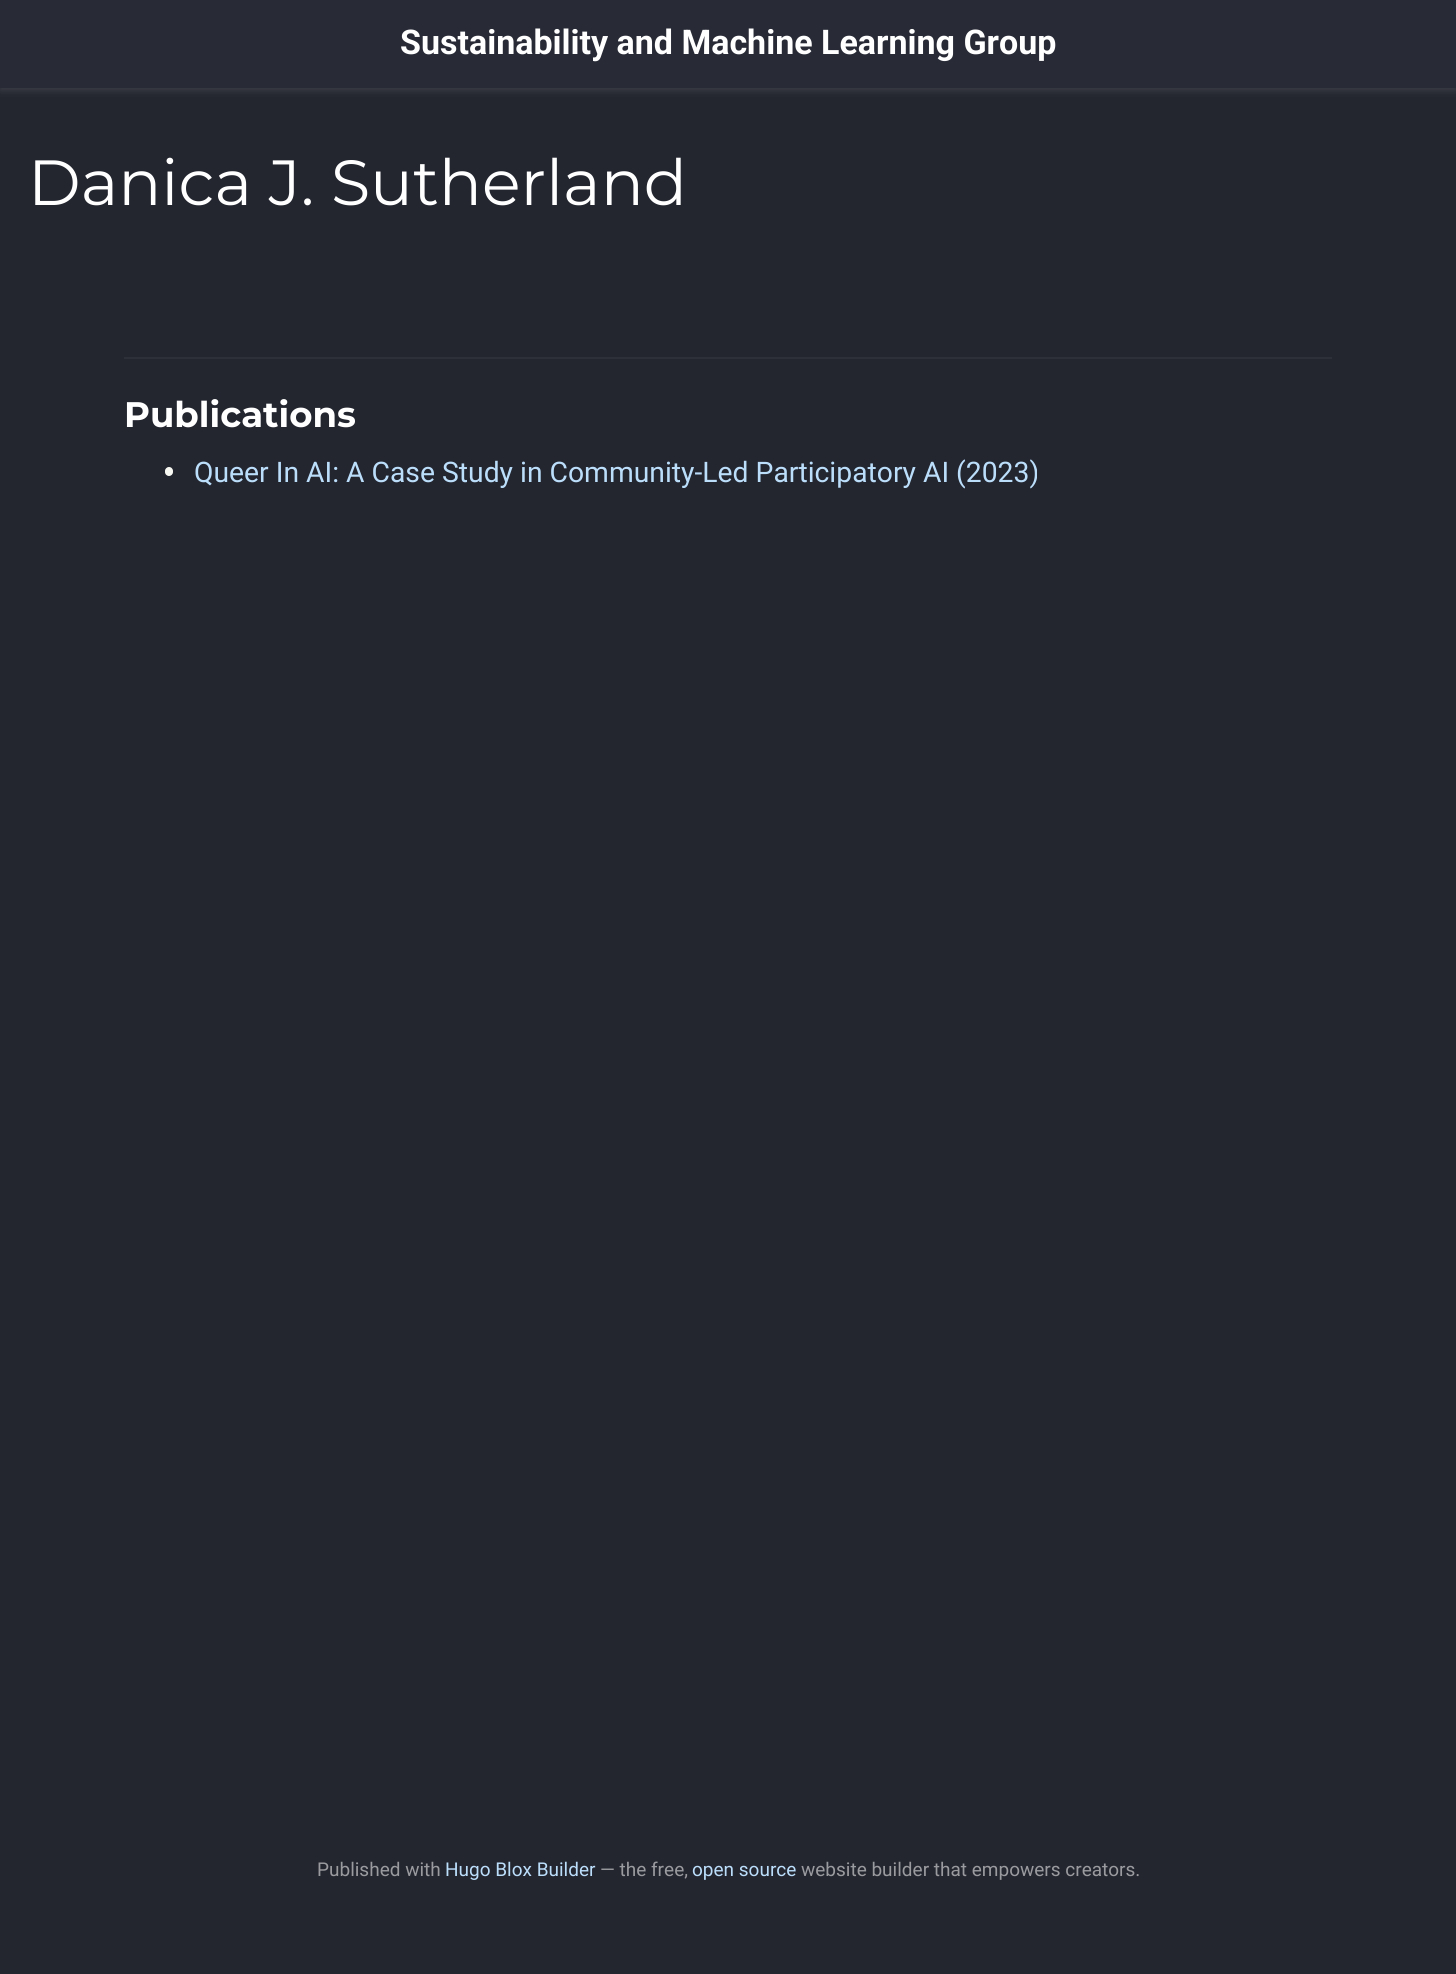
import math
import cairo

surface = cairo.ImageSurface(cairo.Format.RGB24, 1456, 1974)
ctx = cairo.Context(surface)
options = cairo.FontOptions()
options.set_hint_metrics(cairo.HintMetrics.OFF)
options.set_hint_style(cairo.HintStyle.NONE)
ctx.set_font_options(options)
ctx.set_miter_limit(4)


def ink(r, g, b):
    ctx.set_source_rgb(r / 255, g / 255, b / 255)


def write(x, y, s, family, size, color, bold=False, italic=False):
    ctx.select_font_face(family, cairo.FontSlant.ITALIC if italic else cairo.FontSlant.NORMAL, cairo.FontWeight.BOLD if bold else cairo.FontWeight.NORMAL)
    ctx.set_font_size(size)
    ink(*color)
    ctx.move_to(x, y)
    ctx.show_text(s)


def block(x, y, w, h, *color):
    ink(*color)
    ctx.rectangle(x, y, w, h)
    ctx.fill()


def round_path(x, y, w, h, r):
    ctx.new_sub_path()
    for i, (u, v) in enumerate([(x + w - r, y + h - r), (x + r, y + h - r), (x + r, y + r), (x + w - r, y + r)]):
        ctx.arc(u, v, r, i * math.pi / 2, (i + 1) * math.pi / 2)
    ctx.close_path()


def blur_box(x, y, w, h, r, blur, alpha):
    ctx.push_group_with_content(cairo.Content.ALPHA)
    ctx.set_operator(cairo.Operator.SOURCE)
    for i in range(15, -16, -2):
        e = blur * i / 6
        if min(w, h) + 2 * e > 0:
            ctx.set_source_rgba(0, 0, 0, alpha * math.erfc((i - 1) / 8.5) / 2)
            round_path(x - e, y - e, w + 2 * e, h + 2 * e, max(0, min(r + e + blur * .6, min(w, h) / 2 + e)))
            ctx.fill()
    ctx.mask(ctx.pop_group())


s1 = dict(family="Roboto", size=34, color=(255, 255, 255), bold=True)
s2 = dict(family="Montserrat", size=63.75, color=(255, 255, 255))
s3 = dict(family="Montserrat", size=35.5, color=(255, 255, 255), bold=True)
s4 = dict(family="Roboto", size=28.3, color=(187, 222, 251))
s5 = dict(family="Roboto", size=19, color=(154, 155, 159))
s6 = dict(family="Roboto", size=19, color=(187, 222, 251))

ink(35, 37, 47)
ctx.paint()
ink(255, 255, 255)
blur_box(0, 4, 1456, 87, 0, 3.5, 0.11)
block(0, 0, 1456, 88, 40, 42, 54)
write(400, 54, "Sustainability and Machine Learning Group", **s1)
write(28, 205, "Danica J. Sutherland", **s2)
block(124, 357, 1208, 2, 46, 48, 57)
write(124, 427, "Publications", **s3)
ink(248, 248, 242)
round_path(165, 467, 8, 9, 4)
ctx.fill()
write(194, 482, "Queer In AI: A Case Study in Community-Led Participatory AI (2023)", **s4)
write(317, 1876, "Published with", **s5)
write(445, 1876, "Hugo Blox Builder", **s6)
write(600, 1876, "— the free,", **s5)
write(692, 1876, "open source", **s6)
write(801, 1876, "website builder that empowers creators.", **s5)
surface.write_to_png("screenshot.png")
